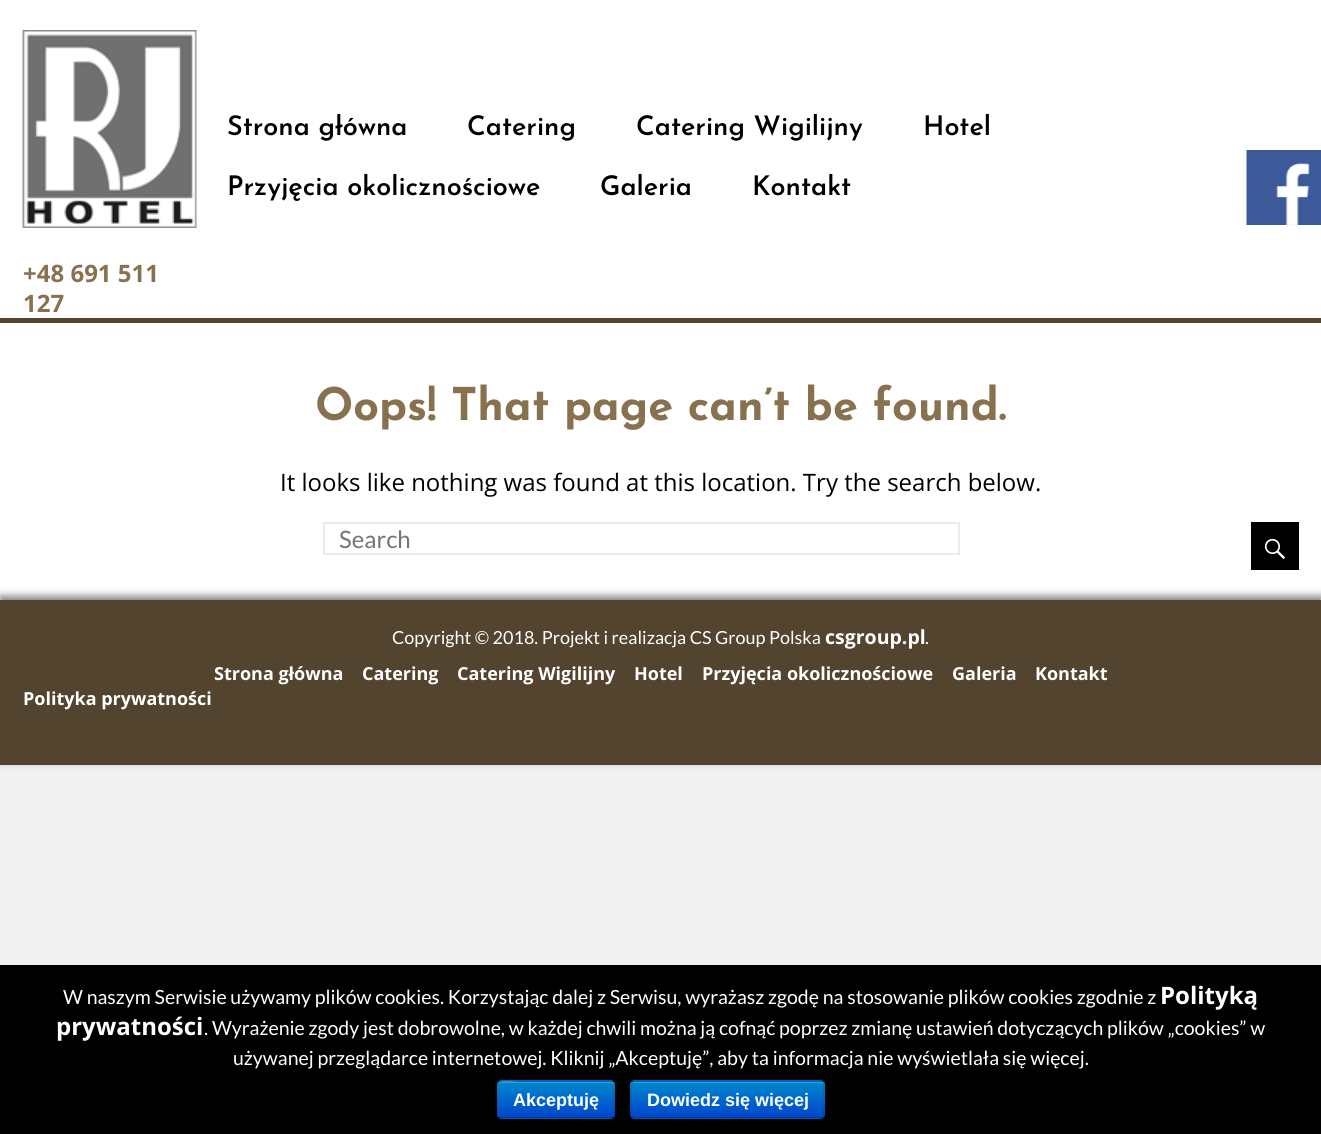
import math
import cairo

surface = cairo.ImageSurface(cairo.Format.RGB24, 1321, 1134)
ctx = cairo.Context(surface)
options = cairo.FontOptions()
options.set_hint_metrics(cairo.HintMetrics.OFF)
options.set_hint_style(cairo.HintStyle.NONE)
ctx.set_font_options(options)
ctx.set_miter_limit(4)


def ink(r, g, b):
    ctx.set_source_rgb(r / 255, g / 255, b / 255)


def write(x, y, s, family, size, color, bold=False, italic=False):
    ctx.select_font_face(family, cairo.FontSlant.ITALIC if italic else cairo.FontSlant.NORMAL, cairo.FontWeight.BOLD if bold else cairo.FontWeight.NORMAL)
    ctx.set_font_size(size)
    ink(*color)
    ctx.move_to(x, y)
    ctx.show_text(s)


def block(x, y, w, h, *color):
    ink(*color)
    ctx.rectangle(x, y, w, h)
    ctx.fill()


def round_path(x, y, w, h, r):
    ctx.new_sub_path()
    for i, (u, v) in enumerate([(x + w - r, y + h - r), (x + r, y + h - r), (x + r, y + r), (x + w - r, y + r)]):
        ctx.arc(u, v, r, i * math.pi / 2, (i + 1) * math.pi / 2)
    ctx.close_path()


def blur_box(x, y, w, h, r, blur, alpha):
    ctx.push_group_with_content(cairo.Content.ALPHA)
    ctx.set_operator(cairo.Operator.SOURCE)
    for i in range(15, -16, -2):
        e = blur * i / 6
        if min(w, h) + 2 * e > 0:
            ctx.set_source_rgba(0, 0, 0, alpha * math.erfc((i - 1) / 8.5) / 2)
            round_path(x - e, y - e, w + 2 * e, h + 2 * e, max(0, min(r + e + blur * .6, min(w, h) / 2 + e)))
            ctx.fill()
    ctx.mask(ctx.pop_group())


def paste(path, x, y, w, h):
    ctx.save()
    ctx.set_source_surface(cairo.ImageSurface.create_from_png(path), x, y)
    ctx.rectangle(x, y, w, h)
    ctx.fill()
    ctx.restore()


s1 = dict(family="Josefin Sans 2 Thin", size=27, color=(0, 0, 0))
s2 = dict(family="Open Sans", size=24, color=(136, 113, 78), bold=True)
s3 = dict(family="Josefin Sans Thin", size=45, color=(136, 113, 78))
s4 = dict(family="Open Sans", size=24, color=(0, 0, 0))
s5 = dict(family="Lato", size=24, color=(117, 117, 117))
s6 = dict(family="Lato", size=18, color=(255, 255, 255))
s7 = dict(family="Open Sans", size=19.5, color=(255, 255, 255), bold=True)
s8 = dict(family="Open Sans", size=18, color=(255, 255, 255), bold=True)
s9 = dict(family="Lato", size=19.5, color=(255, 255, 255))
s10 = dict(family="Open Sans", size=24, color=(255, 255, 255), bold=True)
s11 = dict(family="Liberation Sans", size=18, color=(255, 255, 255), bold=True)

ink(241, 241, 241)
ctx.paint()
block(0, 0, 1321, 600, 255, 255, 255)
block(0, 318, 1321, 5, 82, 68, 47)
write(227, 135, "Strona główna", **s1)
write(467, 135, "Catering", **s1)
write(636, 135, "Catering Wigilijny", **s1)
write(923, 135, "Hotel", **s1)
write(227, 195, "Przyjęcia okolicznościowe", **s1)
write(600, 195, "Galeria", **s1)
write(752, 195, "Kontakt", **s1)
paste("pic1.png", 22, 30, 175, 198)
write(23, 282, "+48 691 511", **s2)
write(23, 312, "127", **s2)
write(315, 420, "Oops! That page can’t be found.", **s3)
write(280, 491, "It looks like nothing was found at this location. Try the search below.", **s4)
ctx.rectangle(324, 523, 635, 31)
ink(234, 234, 234)
ctx.stroke()
write(339, 548, "Search", **s5)
block(1251, 522, 48, 48, 0, 0, 0)
paste("pic2.png", 1264, 538, 21, 21)
paste("pic3.png", 1246, 150, 75, 75)
ink(0, 0, 0)
blur_box(0, 596, 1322, 165, 0, 4, 0.5)
block(0, 600, 1321, 165, 82, 68, 47)
write(392, 644, "Copyright © 2018. Projekt i realizacja CS Group Polska", **s6)
write(825, 644, "csgroup.pl", **s7)
write(925, 644, ".", **s6)
write(214, 680, "Strona główna", **s8)
write(362, 680, "Catering", **s8)
write(457, 680, "Catering Wigilijny", **s8)
write(634, 680, "Hotel", **s8)
write(702, 680, "Przyjęcia okolicznościowe", **s8)
write(952, 680, "Galeria", **s8)
write(1035, 680, "Kontakt", **s8)
write(23, 705, "Polityka prywatności", **s8)
block(0, 965, 1321, 169, 0, 0, 0)
write(63, 1004, "W naszym Serwisie używamy plików cookies. Korzystając dalej z Serwisu, wyrażasz zgodę na stosowanie plików cookies zgodnie z", **s9)
write(1160, 1004, "Polityką", **s10)
write(56, 1035, "prywatności", **s10)
write(204, 1035, ". Wyrażenie zgody jest dobrowolne, w każdej chwili można ją cofnąć poprzez zmianę ustawień dotyczących plików „cookies” w", **s9)
write(233, 1065, "używanej przeglądarce internetowej. Kliknij „Akceptuję”, aby ta informacja nie wyświetlała się więcej.", **s9)
ink(0, 109, 204)
round_path(497, 1080, 118, 39, 5)
ctx.fill()
ctx.save()
round_path(497, 1080, 118, 39, 5)
ctx.clip()
gradient = cairo.LinearGradient(556, 1082, 556, 1118)
gradient.add_color_stop_rgba(0, 0, 0.533, 0.8, 1)
gradient.add_color_stop_rgba(1, 0, 0.267, 0.8, 1)
ctx.set_source(gradient)
ctx.rectangle(497, 1082, 118, 36)
ctx.fill()
ctx.restore()
ctx.set_source_rgba(1, 1, 1, 0.2)
ctx.new_path()
ctx.move_to(501, 1083)
ctx.line_to(610, 1083)
ctx.curve_to(612, 1083, 614, 1084, 614, 1086)
ctx.curve_to(614, 1084, 613, 1082, 611, 1082)
ctx.line_to(519, 1082)
ctx.curve_to(518, 1082, 498, 1077, 498, 1086)
ctx.curve_to(498, 1084, 499, 1083, 501, 1083)
ctx.close_path()
ctx.fill()
ctx.new_path()
ctx.move_to(613, 1117)
ctx.line_to(611, 1118)
ctx.line_to(519, 1118)
ctx.line_to(501, 1118)
ctx.line_to(498.5, 1117)
ctx.set_source_rgba(0, 0, 0, 0.25)
ctx.set_line_width(1.5)
ctx.stroke()
ctx.new_path()
ctx.move_to(498.5, 1117)
ctx.curve_to(496.5, 1115.5, 497, 1111.5, 497, 1109.5)
ctx.line_to(497, 1099.5)
ctx.curve_to(497, 1076.5, 494, 1081, 519, 1081)
ctx.line_to(610.5, 1081)
ctx.curve_to(615, 1081, 614, 1086.5, 614, 1089.5)
ctx.line_to(614, 1104.5)
ctx.curve_to(614, 1107, 615.5, 1114.5, 613, 1117)
ctx.set_source_rgba(0, 0, 0, 0.1)
ctx.stroke()
write(513, 1106, "Akceptuję", **s11)
ink(0, 109, 204)
round_path(630, 1080, 195, 39, 5)
ctx.fill()
ctx.save()
round_path(630, 1080, 195, 39, 5)
ctx.clip()
gradient = cairo.LinearGradient(728, 1082, 728, 1118)
gradient.add_color_stop_rgba(0, 0, 0.533, 0.8, 1)
gradient.add_color_stop_rgba(1, 0, 0.267, 0.8, 1)
ctx.set_source(gradient)
ctx.rectangle(630, 1082, 195, 36)
ctx.fill()
ctx.restore()
ink(51, 159, 214)
ctx.new_path()
ctx.move_to(634, 1083)
ctx.line_to(820, 1083)
ctx.curve_to(822, 1083, 824, 1084, 824, 1086)
ctx.curve_to(824, 1084, 823, 1082, 821, 1082)
ctx.line_to(635, 1082)
ctx.curve_to(633, 1082, 632, 1084, 632, 1086)
ctx.curve_to(632, 1084, 633, 1083, 634, 1083)
ctx.close_path()
ctx.fill()
ctx.new_path()
ctx.move_to(823, 1117)
ctx.line_to(821, 1118)
ctx.line_to(665.5, 1118)
ctx.line_to(634.5, 1118)
ctx.line_to(632, 1117)
ctx.set_source_rgba(0, 0, 0, 0.25)
ctx.stroke()
ctx.new_path()
ctx.move_to(632, 1117)
ctx.curve_to(631, 1116.5, 631, 1115.5, 631, 1114.5)
ctx.line_to(631, 1084.5)
ctx.curve_to(631, 1083.5, 631, 1082.5, 632, 1082)
ctx.curve_to(632.5, 1081, 633.5, 1081, 634.5, 1081)
ctx.line_to(820.5, 1081)
ctx.curve_to(821.5, 1081, 822.5, 1081, 823, 1082)
ctx.curve_to(824, 1082.5, 824, 1083.5, 824, 1084.5)
ctx.line_to(824, 1114.5)
ctx.curve_to(824, 1115.5, 824, 1116.5, 823, 1117)
ctx.set_source_rgba(0, 0, 0, 0.1)
ctx.stroke()
write(647, 1106, "Dowiedz się więcej", **s11)
surface.write_to_png("screenshot.png")
